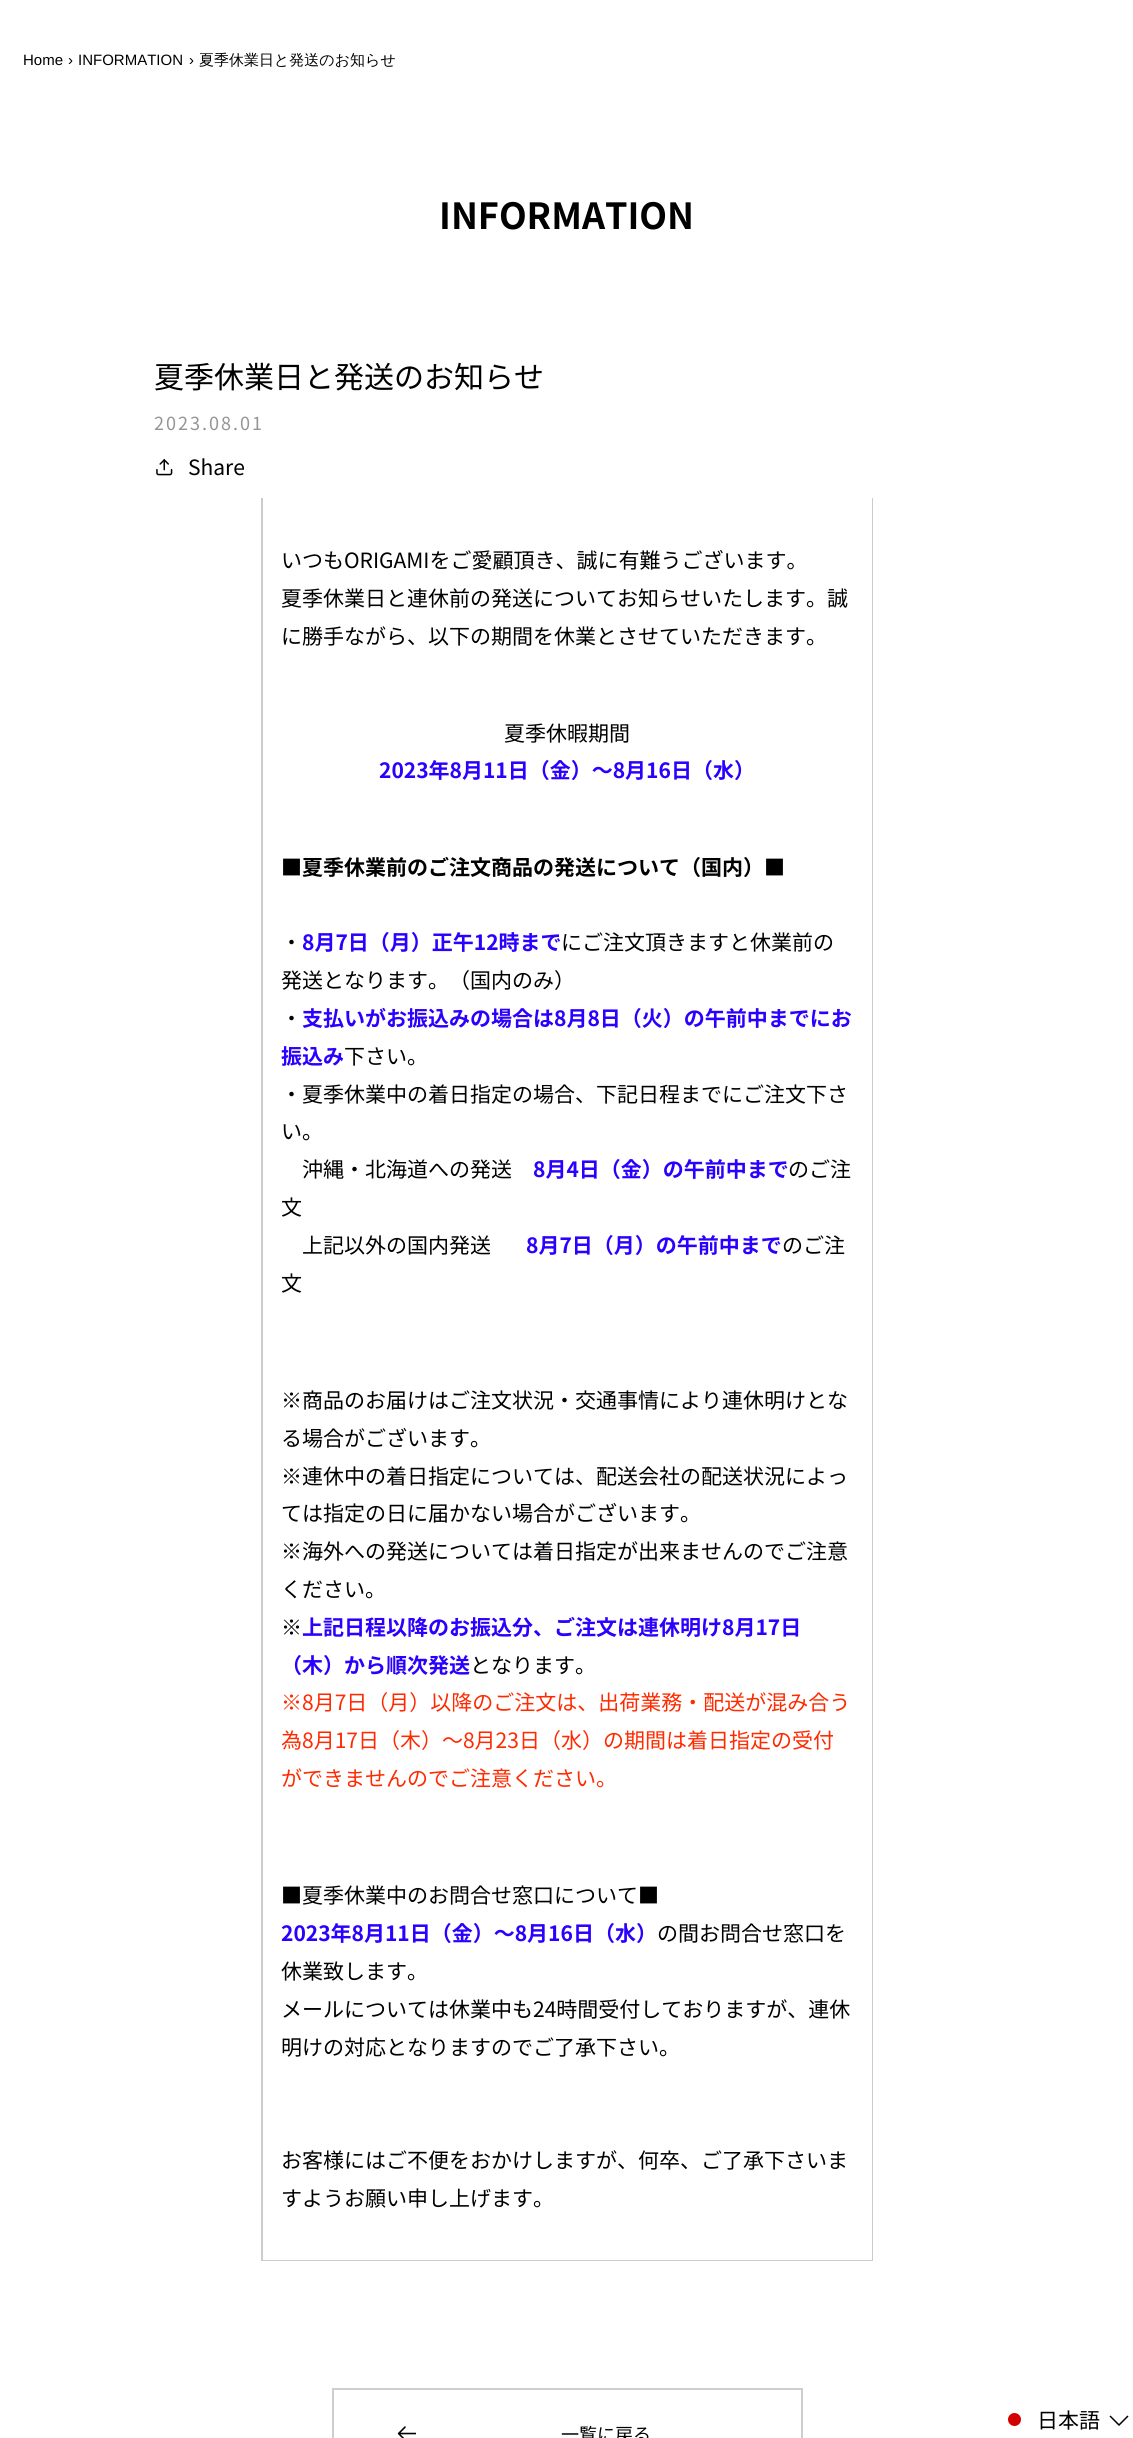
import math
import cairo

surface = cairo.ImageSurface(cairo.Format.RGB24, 1133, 2438)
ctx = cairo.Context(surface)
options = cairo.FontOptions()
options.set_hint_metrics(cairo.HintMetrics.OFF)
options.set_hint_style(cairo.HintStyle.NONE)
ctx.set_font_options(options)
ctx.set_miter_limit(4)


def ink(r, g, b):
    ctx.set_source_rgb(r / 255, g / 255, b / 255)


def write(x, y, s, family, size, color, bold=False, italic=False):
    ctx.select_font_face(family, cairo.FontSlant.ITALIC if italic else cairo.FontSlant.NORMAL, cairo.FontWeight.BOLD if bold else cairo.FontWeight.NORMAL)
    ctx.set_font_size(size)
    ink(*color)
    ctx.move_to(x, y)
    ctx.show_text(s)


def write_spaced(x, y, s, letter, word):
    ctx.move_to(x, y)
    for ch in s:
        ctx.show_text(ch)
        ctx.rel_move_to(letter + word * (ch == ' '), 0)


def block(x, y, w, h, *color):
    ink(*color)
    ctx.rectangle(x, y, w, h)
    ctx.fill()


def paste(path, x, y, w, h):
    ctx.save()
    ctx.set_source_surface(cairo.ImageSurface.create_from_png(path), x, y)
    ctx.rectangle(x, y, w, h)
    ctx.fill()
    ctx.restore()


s1 = dict(family="Liberation Sans", size=15, color=(0, 0, 0))
s2 = dict(family="WenQuanYi Zen Hei Medium", size=15, color=(0, 0, 0))
s3 = dict(family="Noto Sans JP", size=36, color=(0, 0, 0), bold=True)
s4 = dict(family="Noto Sans JP", size=30, color=(0, 0, 0))
s5 = dict(family="Noto Sans JP", size=21, color=(0, 0, 0))
s6 = dict(family="Noto Sans JP", size=21, color=(43, 0, 255), bold=True)
s7 = dict(family="Noto Sans JP", size=21, color=(0, 0, 0), bold=True)
s8 = dict(family="Noto Sans JP", size=21, color=(255, 42, 0))
s9 = dict(family="Noto Sans JP", size=18, color=(0, 0, 0))

ink(255, 255, 255)
ctx.paint()
write(23, 65, "Home", **s1)
write(68, 65, "›", **s1)
write(78, 65, "INFORMATION", **s1)
write(189, 65, "›", **s1)
write(199, 65, "夏季休業日と発送のお知らせ", **s2)
write(439, 229, "INFORMATION", **s3)
write(154, 388, "夏季休業日と発送のお知らせ", **s4)
ctx.set_font_size(18)
ink(149, 149, 149)
write_spaced(154, 430, "2023.08.01", 2, 0)
paste("pic1.png", 156, 459, 17, 17)
write(188, 475, "Share", **s5)
ctx.rectangle(262, 499, 610, 1761)
ink(204, 204, 204)
ctx.stroke()
block(263, 498, 609, 2, 255, 255, 255)
block(871, 498, 1, 1761, 255, 255, 255)
block(263, 2259, 609, 1, 255, 255, 255)
write(281, 568, "いつもORIGAMIをご愛顧頂き、誠に有難うございます。", **s5)
write(281, 606, "夏季休業日と連休前の発送についてお知らせいたします。誠", **s5)
write(281, 644, "に勝手ながら、以下の期間を休業とさせていただきます。", **s5)
write(504, 741, "夏季休暇期間", **s5)
write(379, 778, "2023年8月11日（金）～8月16日（水）", **s6)
write(281, 875, "■夏季休業前のご注文商品の発送について（国内）■", **s7)
write(281, 950, "・", **s5)
write(302, 950, "8月7日（月）正午12時まで", **s6)
write(561, 950, "にご注文頂きますと休業前の", **s5)
write(281, 988, "発送となります。（国内のみ）", **s5)
write(281, 1026, "・", **s5)
write(302, 1026, "支払いがお振込みの場合は8月8日（火）の午前中までにお", **s6)
write(281, 1064, "振込み", **s6)
write(344, 1064, "下さい。", **s5)
write(281, 1102, "・夏季休業中の着日指定の場合、下記日程までにご注文下さ", **s5)
write(281, 1139, "い。", **s5)
write(302, 1177, "沖縄・北海道への発送", **s5)
write(533, 1177, "8月4日（金）の午前中まで", **s6)
write(788, 1177, "のご注", **s5)
write(281, 1215, "文", **s5)
write(302, 1253, "上記以外の国内発送", **s5)
write(526, 1253, "8月7日（月）の午前中まで", **s6)
write(782, 1253, "のご注", **s5)
write(281, 1291, "文", **s5)
write(281, 1408, "※商品のお届けはご注文状況・交通事情により連休明けとな", **s5)
write(281, 1446, "る場合がございます。", **s5)
write(281, 1484, "※連休中の着日指定については、配送会社の配送状況によっ", **s5)
write(281, 1521, "ては指定の日に届かない場合がございます。", **s5)
write(281, 1559, "※海外への発送については着日指定が出来ませんのでご注意", **s5)
write(281, 1597, "ください。", **s5)
write(281, 1635, "※", **s5)
write(302, 1635, "上記日程以降のお振込分、ご注文は連休明け8月17日", **s6)
write(281, 1673, "（木）から順次発送", **s6)
write(470, 1673, "となります。", **s5)
write(281, 1710, "※8月7日（月）以降のご注文は、出荷業務・配送が混み合う", **s8)
write(281, 1748, "為8月17日（木）～8月23日（水）の期間は着日指定の受付", **s8)
write(281, 1786, "ができませんのでご注意ください。", **s8)
write(281, 1903, "■夏季休業中のお問合せ窓口について■", **s5)
write(281, 1941, "2023年8月11日（金）～8月16日（水）", **s6)
write(657, 1941, "の間お問合せ窓口を", **s5)
write(281, 1979, "休業致します。", **s5)
write(281, 2017, "メールについては休業中も24時間受付しておりますが、連休", **s5)
write(281, 2055, "明けの対応となりますのでご了承下さい。", **s5)
write(281, 2168, "お客様にはご不便をおかけしますが、何卒、ご了承下さいま", **s5)
write(281, 2206, "すようお願い申し上げます。", **s5)
ctx.rectangle(333, 2389, 469, 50)
ink(206, 206, 206)
ctx.stroke()
paste("pic2.png", 397, 2426, 19, 12)
write(561, 2441, "一覧に戻る", **s9)
ink(211, 0, 0)
ctx.new_path()
ctx.arc(1014.5, 2419.5, 6.5, 0, 2 * math.pi)
ctx.fill()
write(1037, 2428, "日本語", **s5)
ctx.new_path()
ctx.move_to(1110, 2416)
ctx.line_to(1119, 2425)
ctx.line_to(1128, 2416)
ctx.set_line_width(1.5)
ctx.stroke()
surface.write_to_png("screenshot.png")
